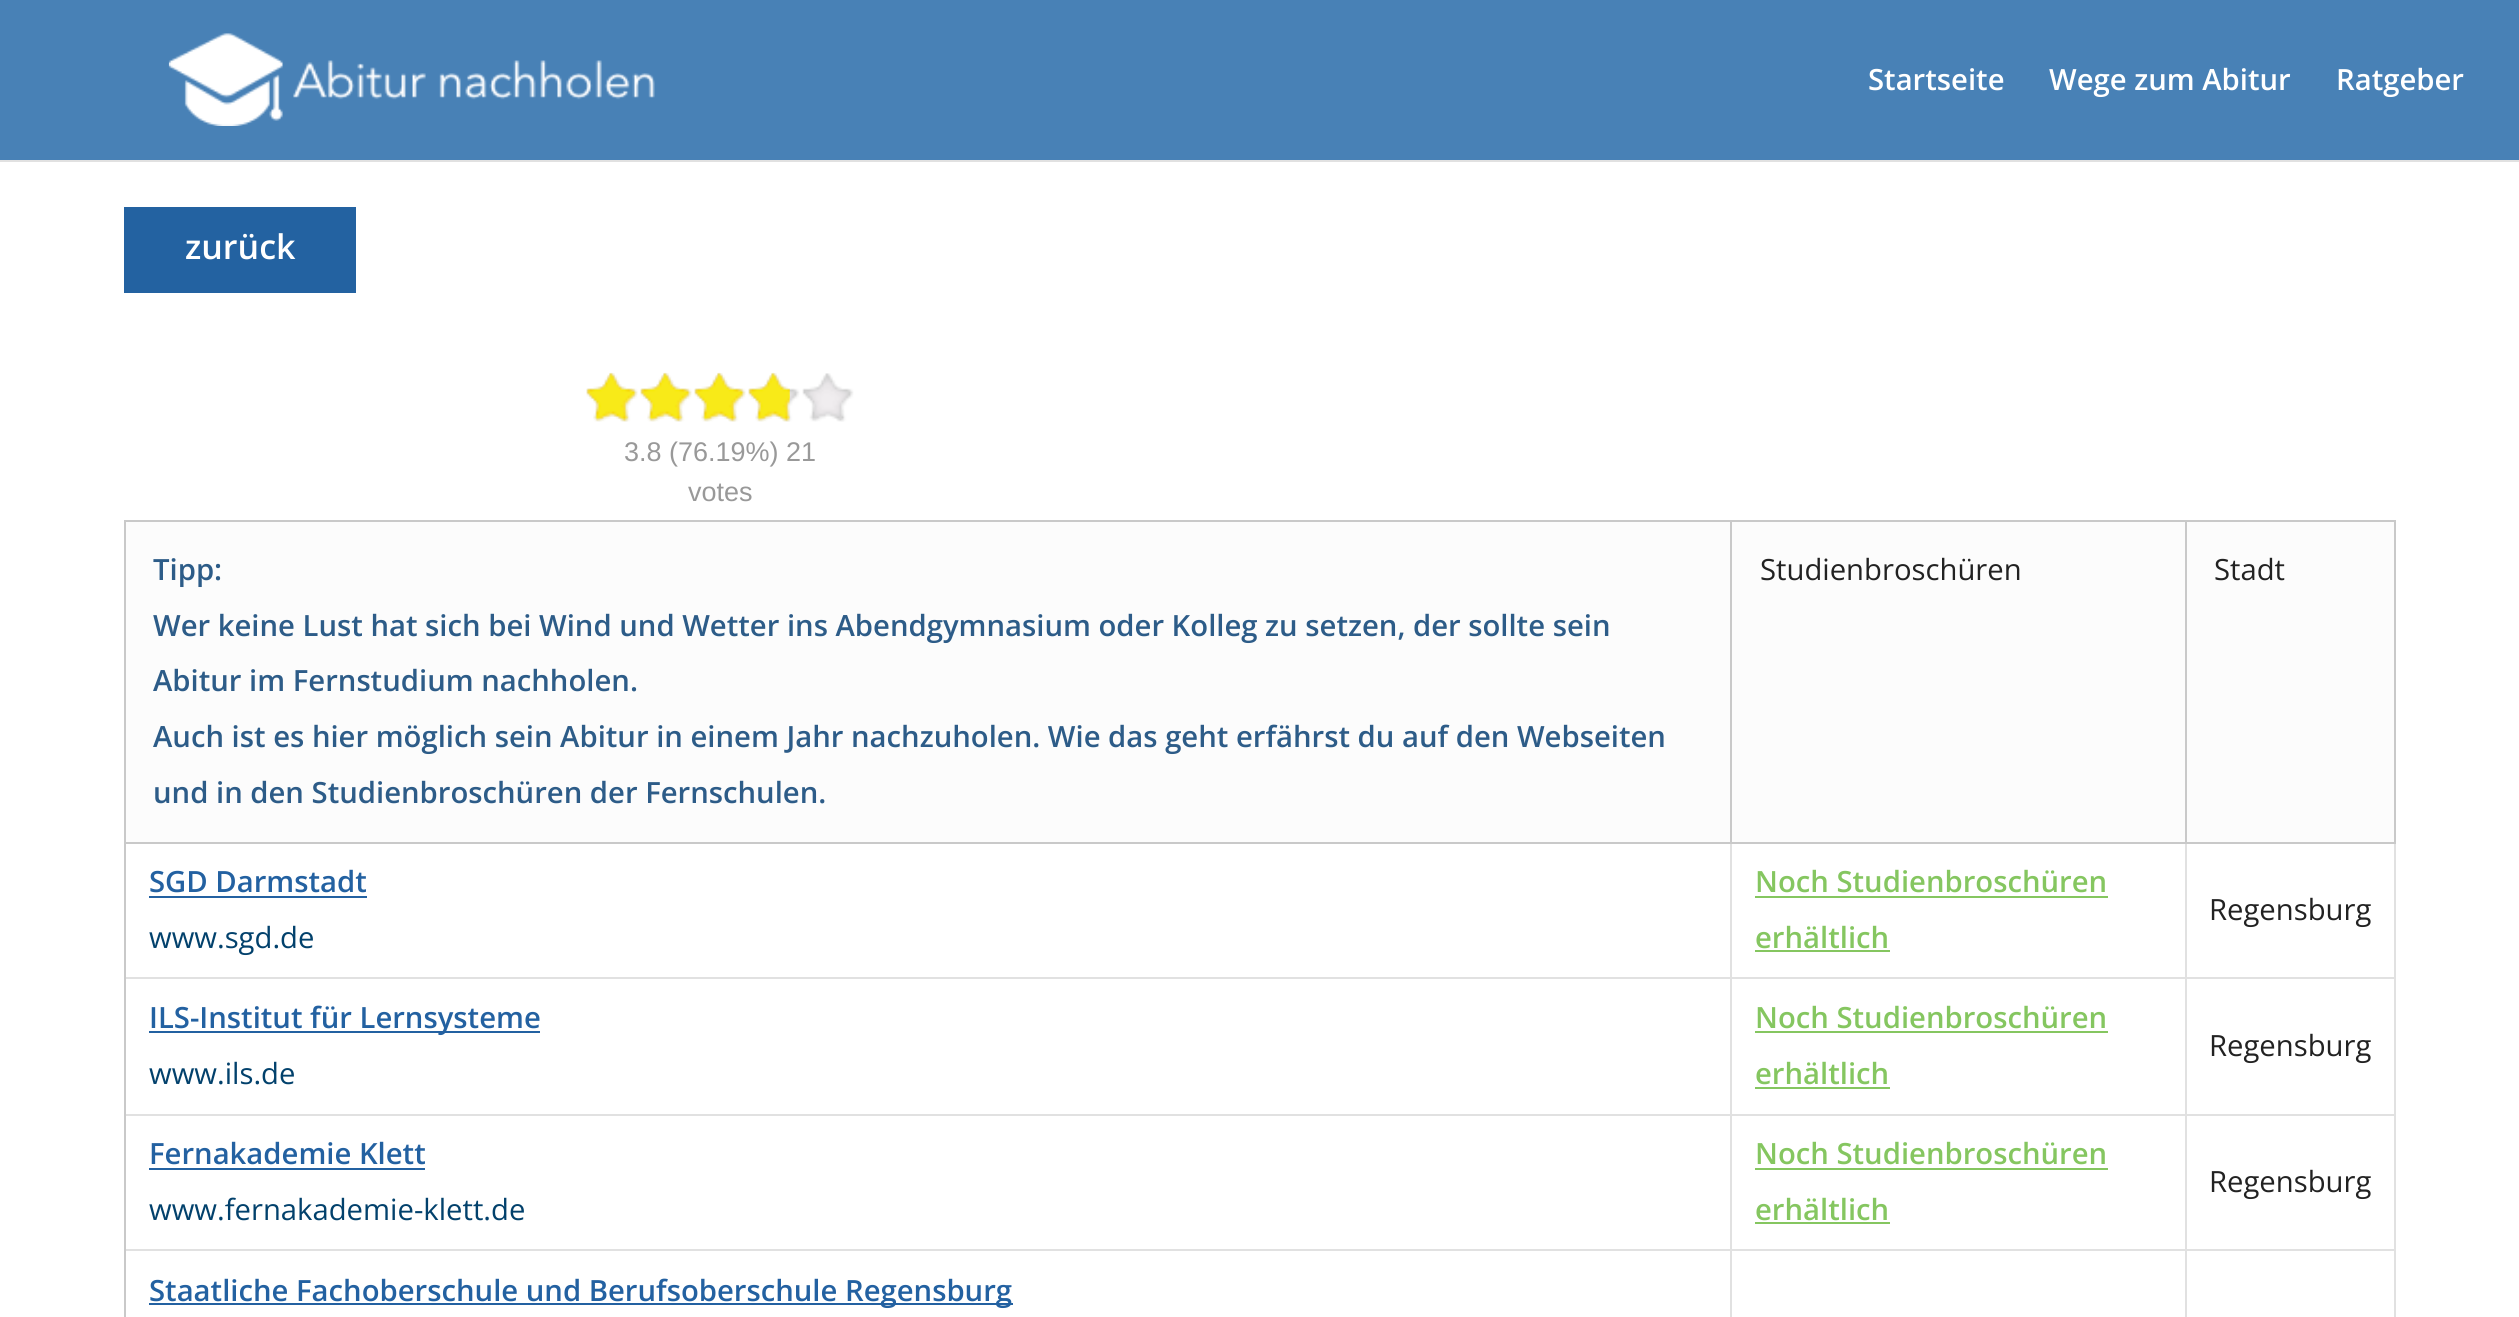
import math
import cairo

surface = cairo.ImageSurface(cairo.Format.RGB24, 2519, 1317)
ctx = cairo.Context(surface)
options = cairo.FontOptions()
options.set_hint_metrics(cairo.HintMetrics.OFF)
options.set_hint_style(cairo.HintStyle.NONE)
ctx.set_font_options(options)
ctx.set_miter_limit(4)


def ink(r, g, b):
    ctx.set_source_rgb(r / 255, g / 255, b / 255)


def write(x, y, s, family, size, color, bold=False, italic=False):
    ctx.select_font_face(family, cairo.FontSlant.ITALIC if italic else cairo.FontSlant.NORMAL, cairo.FontWeight.BOLD if bold else cairo.FontWeight.NORMAL)
    ctx.set_font_size(size)
    ink(*color)
    ctx.move_to(x, y)
    ctx.show_text(s)


def block(x, y, w, h, *color):
    ink(*color)
    ctx.rectangle(x, y, w, h)
    ctx.fill()


def paste(path, x, y, w, h):
    ctx.save()
    ctx.set_source_surface(cairo.ImageSurface.create_from_png(path), x, y)
    ctx.rectangle(x, y, w, h)
    ctx.fill()
    ctx.restore()


s1 = dict(family="Open Sans SemiBold", size=29.25, color=(255, 255, 255))
s2 = dict(family="Open Sans SemiBold", size=34, color=(255, 255, 255))
s3 = dict(family="Liberation Sans", size=27, color=(153, 153, 153))
s4 = dict(family="Open Sans SemiBold", size=29.25, color=(45, 92, 136))
s5 = dict(family="Open Sans", size=29.25, color=(34, 34, 34))
s6 = dict(family="Open Sans SemiBold", size=29.25, color=(35, 97, 161))
s7 = dict(family="Open Sans", size=29.25, color=(2, 65, 108))
s8 = dict(family="Open Sans SemiBold", size=29.25, color=(133, 198, 96))

ink(255, 255, 255)
ctx.paint()
block(0, 0, 2519, 160, 72, 129, 182)
paste("pic1.png", 168, 33, 487, 93)
write(1868, 90, "Startseite", **s1)
write(2049, 90, "Wege zum Abitur", **s1)
write(2336, 90, "Ratgeber", **s1)
block(0, 160, 2519, 2, 225, 225, 225)
block(124, 207, 232, 86, 35, 98, 161)
write(185, 259, "zurück", **s2)
paste("pic2.png", 586, 373, 268, 49)
paste("pic3.png", 586, 372, 204, 50)
write(624, 461, "3.8 (76.19%) 21", **s3)
write(688, 501, "votes", **s3)
block(126, 522, 2268, 320, 252, 252, 252)
block(2394, 844, 2, 473, 225, 225, 225)
block(2185, 520, 211, 2, 201, 201, 201)
block(2394, 520, 2, 324, 201, 201, 201)
block(2185, 1249, 2, 68, 225, 225, 225)
block(2185, 1249, 211, 2, 225, 225, 225)
block(2185, 1114, 2, 137, 225, 225, 225)
block(2185, 1114, 211, 2, 225, 225, 225)
block(2185, 977, 2, 139, 225, 225, 225)
block(2185, 977, 211, 2, 225, 225, 225)
block(2185, 842, 2, 137, 225, 225, 225)
block(2185, 842, 211, 2, 201, 201, 201)
block(2185, 520, 2, 324, 201, 201, 201)
block(1730, 520, 457, 2, 201, 201, 201)
block(1730, 1249, 2, 68, 225, 225, 225)
block(1730, 1249, 457, 2, 225, 225, 225)
block(1730, 1114, 2, 137, 225, 225, 225)
block(1730, 1114, 457, 2, 225, 225, 225)
block(1730, 977, 2, 139, 225, 225, 225)
block(1730, 977, 457, 2, 225, 225, 225)
block(1730, 842, 2, 137, 225, 225, 225)
block(1730, 842, 457, 2, 201, 201, 201)
block(1730, 520, 2, 324, 201, 201, 201)
block(124, 520, 1609, 2, 201, 201, 201)
block(124, 1249, 2, 68, 201, 201, 201)
block(124, 1249, 1609, 2, 225, 225, 225)
block(124, 1114, 2, 137, 201, 201, 201)
block(124, 1114, 1609, 2, 225, 225, 225)
block(124, 977, 2, 139, 201, 201, 201)
block(124, 977, 1609, 2, 225, 225, 225)
block(124, 842, 2, 137, 201, 201, 201)
block(124, 842, 1609, 2, 201, 201, 201)
block(124, 520, 2, 324, 201, 201, 201)
write(153, 580, "Tipp:", **s4)
write(153, 636, "Wer keine Lust hat sich bei Wind und Wetter ins Abendgymnasium oder Kolleg zu setzen, der sollte sein", **s4)
write(153, 691, "Abitur im Fernstudium nachholen.", **s4)
write(153, 747, "Auch ist es hier möglich sein Abitur in einem Jahr nachzuholen. Wie das geht erfährst du auf den Webseiten", **s4)
write(153, 803, "und in den Studienbroschüren der Fernschulen.", **s4)
write(1760, 580, "Studienbroschüren", **s5)
write(2214, 580, "Stadt", **s5)
write(149, 892, "SGD Darmstadt", **s6)
block(149, 896, 218, 2, 35, 97, 161)
write(149, 948, "www.sgd.de", **s7)
write(1755, 892, "Noch Studienbroschüren", **s8)
block(1755, 896, 353, 2, 133, 198, 96)
write(1755, 948, "erhältlich", **s8)
block(1755, 950, 135, 2, 133, 198, 96)
write(2209, 920, "Regensburg", **s5)
block(149, 1031, 391, 2, 35, 97, 161)
write(149, 1028, "ILS-Institut für Lernsysteme", **s6)
write(149, 1084, "www.ils.de", **s7)
write(1755, 1028, "Noch Studienbroschüren", **s8)
block(1755, 1031, 353, 2, 133, 198, 96)
write(1755, 1084, "erhältlich", **s8)
block(1755, 1087, 135, 2, 133, 198, 96)
write(2209, 1056, "Regensburg", **s5)
write(149, 1164, "Fernakademie Klett", **s6)
block(149, 1168, 276, 2, 35, 97, 161)
write(149, 1220, "www.fernakademie-klett.de", **s7)
write(1755, 1164, "Noch Studienbroschüren", **s8)
block(1755, 1168, 353, 2, 133, 198, 96)
write(1755, 1220, "erhältlich", **s8)
block(1755, 1222, 135, 2, 133, 198, 96)
write(2209, 1192, "Regensburg", **s5)
block(149, 1303, 864, 2, 35, 97, 161)
write(149, 1301, "Staatliche Fachoberschule und Berufsoberschule Regensburg", **s6)
surface.write_to_png("screenshot.png")
